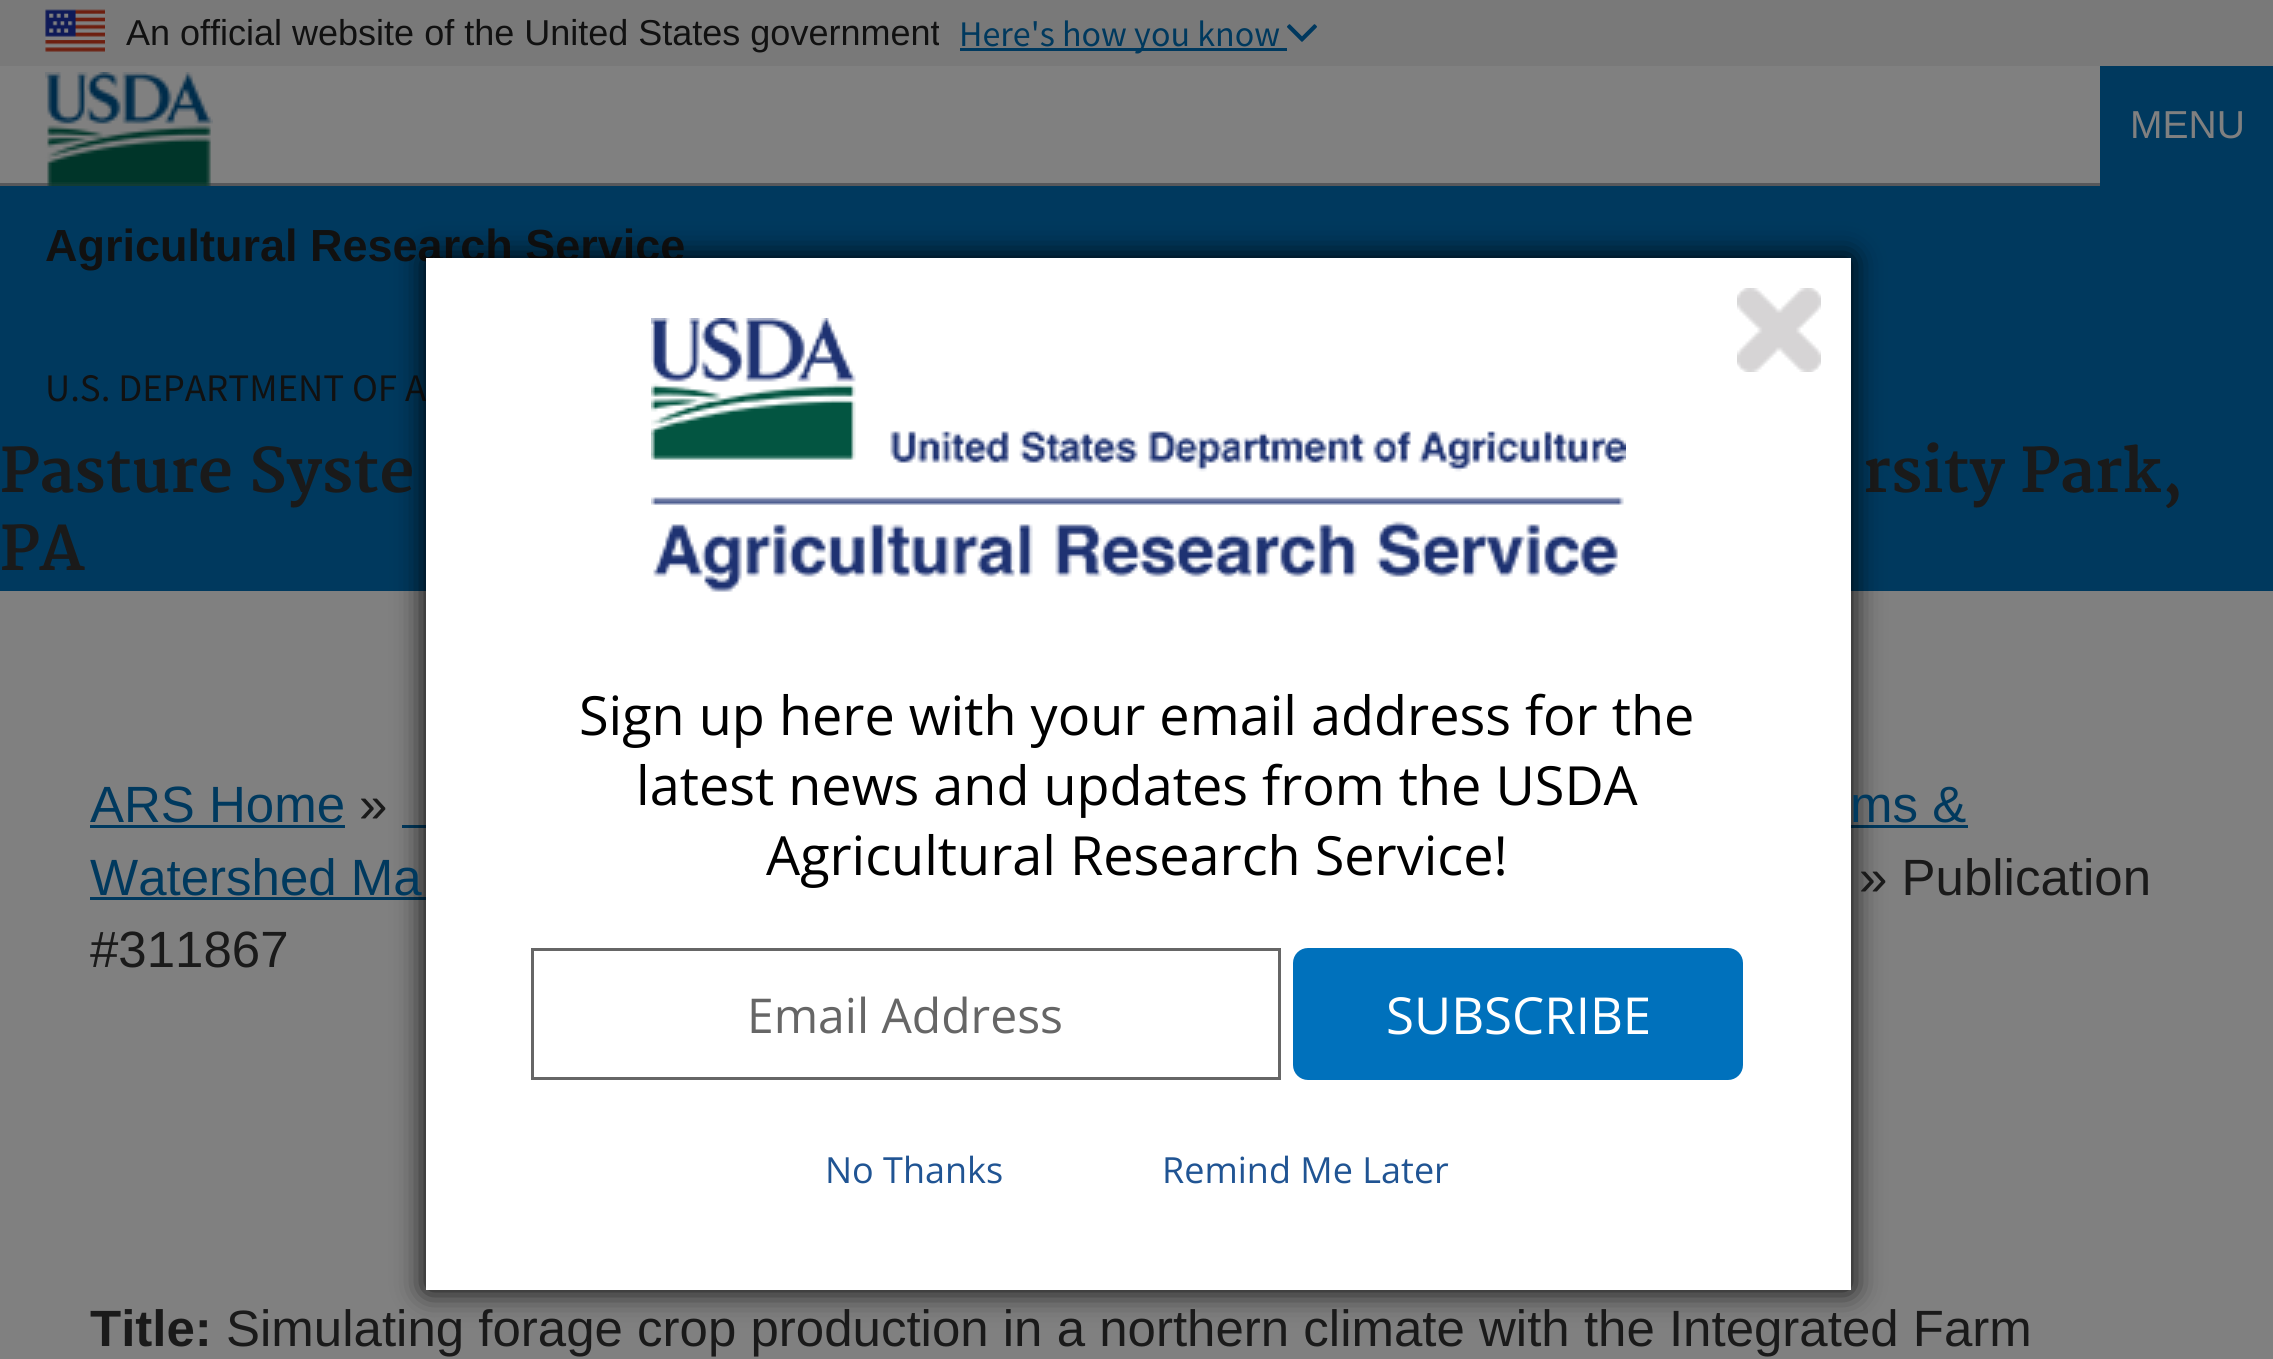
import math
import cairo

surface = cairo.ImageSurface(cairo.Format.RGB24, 2273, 1359)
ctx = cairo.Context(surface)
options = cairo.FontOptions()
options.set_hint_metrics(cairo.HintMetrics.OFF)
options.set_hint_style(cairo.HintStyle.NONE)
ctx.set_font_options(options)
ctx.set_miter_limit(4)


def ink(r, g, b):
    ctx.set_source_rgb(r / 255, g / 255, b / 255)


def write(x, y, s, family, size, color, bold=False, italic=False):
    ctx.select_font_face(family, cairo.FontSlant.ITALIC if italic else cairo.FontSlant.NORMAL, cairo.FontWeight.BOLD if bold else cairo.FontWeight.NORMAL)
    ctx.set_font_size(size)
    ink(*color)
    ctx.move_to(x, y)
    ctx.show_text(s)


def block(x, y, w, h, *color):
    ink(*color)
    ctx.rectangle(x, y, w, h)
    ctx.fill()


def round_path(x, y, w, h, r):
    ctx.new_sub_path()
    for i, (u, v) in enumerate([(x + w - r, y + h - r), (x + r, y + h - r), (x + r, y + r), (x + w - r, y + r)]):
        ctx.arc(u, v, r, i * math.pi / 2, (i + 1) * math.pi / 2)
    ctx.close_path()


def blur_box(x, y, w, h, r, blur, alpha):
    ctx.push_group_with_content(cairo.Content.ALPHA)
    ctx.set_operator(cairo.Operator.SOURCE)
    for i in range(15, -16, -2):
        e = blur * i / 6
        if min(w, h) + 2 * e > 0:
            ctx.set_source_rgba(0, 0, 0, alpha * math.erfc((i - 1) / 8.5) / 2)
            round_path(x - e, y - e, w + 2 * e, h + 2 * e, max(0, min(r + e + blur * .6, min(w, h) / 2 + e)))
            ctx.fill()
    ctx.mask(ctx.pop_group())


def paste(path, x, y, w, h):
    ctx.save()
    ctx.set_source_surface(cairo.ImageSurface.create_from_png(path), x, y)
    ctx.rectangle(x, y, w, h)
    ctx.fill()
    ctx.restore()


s1 = dict(family="Liberation Sans", size=36, color=(17, 17, 17))
s2 = dict(family="Source Sans Pro", size=36, color=(0, 57, 94))
s3 = dict(family="Liberation Sans", size=39, color=(128, 128, 128))
s4 = dict(family="Liberation Sans", size=45, color=(17, 17, 17), bold=True)
s5 = dict(family="Source Sans Pro", size=39, color=(17, 17, 17))
s6 = dict(family="Merriweather", size=60, color=(26, 26, 26), bold=True)
s7 = dict(family="Open Sans", size=54, color=(0, 0, 0))
s8 = dict(family="Open Sans", size=48, color=(102, 102, 102))
s9 = dict(family="Open Sans", size=51, color=(255, 255, 255))
s10 = dict(family="Open Sans", size=36, color=(32, 84, 147))
s11 = dict(family="Liberation Sans", size=51, color=(0, 57, 94))
s12 = dict(family="Liberation Sans", size=51, color=(26, 26, 26))
s13 = dict(family="Liberation Sans", size=51, color=(26, 26, 26), bold=True)

ink(128, 128, 128)
ctx.paint()
block(0, 0, 2273, 66, 121, 121, 121)
paste("pic1.png", 45, 9, 60, 43)
ctx.save()
ctx.rectangle(126, 6, 813, 54)
ctx.clip()
write(126, 45, "An official website of the United States government", **s1)
ctx.restore()
block(960, 48, 327, 3, 0, 57, 94)
write(959, 46, "Here's how you know", **s2)
paste("pic2.png", 1287, 24, 30, 18)
block(0, 183, 2100, 3, 87, 88, 91)
block(2100, 66, 173, 120, 0, 57, 94)
write(2130, 138, "MENU", **s3)
paste("pic3.png", 45, 72, 168, 114)
block(0, 186, 2273, 405, 0, 57, 94)
write(45, 261, "Agricultural Research Service", **s4)
write(45, 401, "U.S. DEPARTMENT OF A", **s5)
write(0, 492, "Pasture Syste", **s6)
write(1863, 492, "rsity Park,", **s6)
write(0, 570, "PA", **s6)
block(1851, 825, 117, 3, 0, 57, 94)
block(402, 825, 24, 3, 0, 57, 94)
block(90, 897, 336, 3, 0, 57, 94)
ink(0, 0, 0)
blur_box(426, 258, 1425, 1032, 0, 15, 1)
block(426, 258, 1425, 1032, 255, 255, 255)
paste("pic4.png", 651, 318, 975, 274)
paste("pic5.png", 1737, 288, 84, 84)
write(579, 735, "Sign up here with your email address for the", **s7)
write(636, 805, "latest news and updates from the USDA", **s7)
write(766, 875, "Agricultural Research Service!", **s7)
ctx.rectangle(532.5, 949.5, 747, 129)
ink(102, 102, 102)
ctx.set_line_width(3)
ctx.stroke()
write(747, 1033, "Email Address", **s8)
ink(0, 113, 188)
round_path(1294.5, 949.5, 447, 129, 13.5)
ctx.fill_preserve()
ctx.stroke()
write(1386, 1034, "SUBSCRIBE", **s9)
write(825, 1183, "No Thanks", **s10)
write(1162, 1183, "Remind Me Later", **s10)
write(90, 822, "ARS Home", **s11)
block(90, 825, 255, 3, 0, 57, 94)
write(359, 822, "»", **s12)
write(1850, 822, "ms &", **s11)
write(90, 895, "Watershed Ma", **s11)
write(1859, 895, "» Publication", **s12)
write(90, 967, "#311867", **s12)
write(90, 1346, "Title:", **s13)
write(226, 1346, "Simulating forage crop production in a northern climate with the Integrated Farm", **s12)
surface.write_to_png("screenshot.png")
